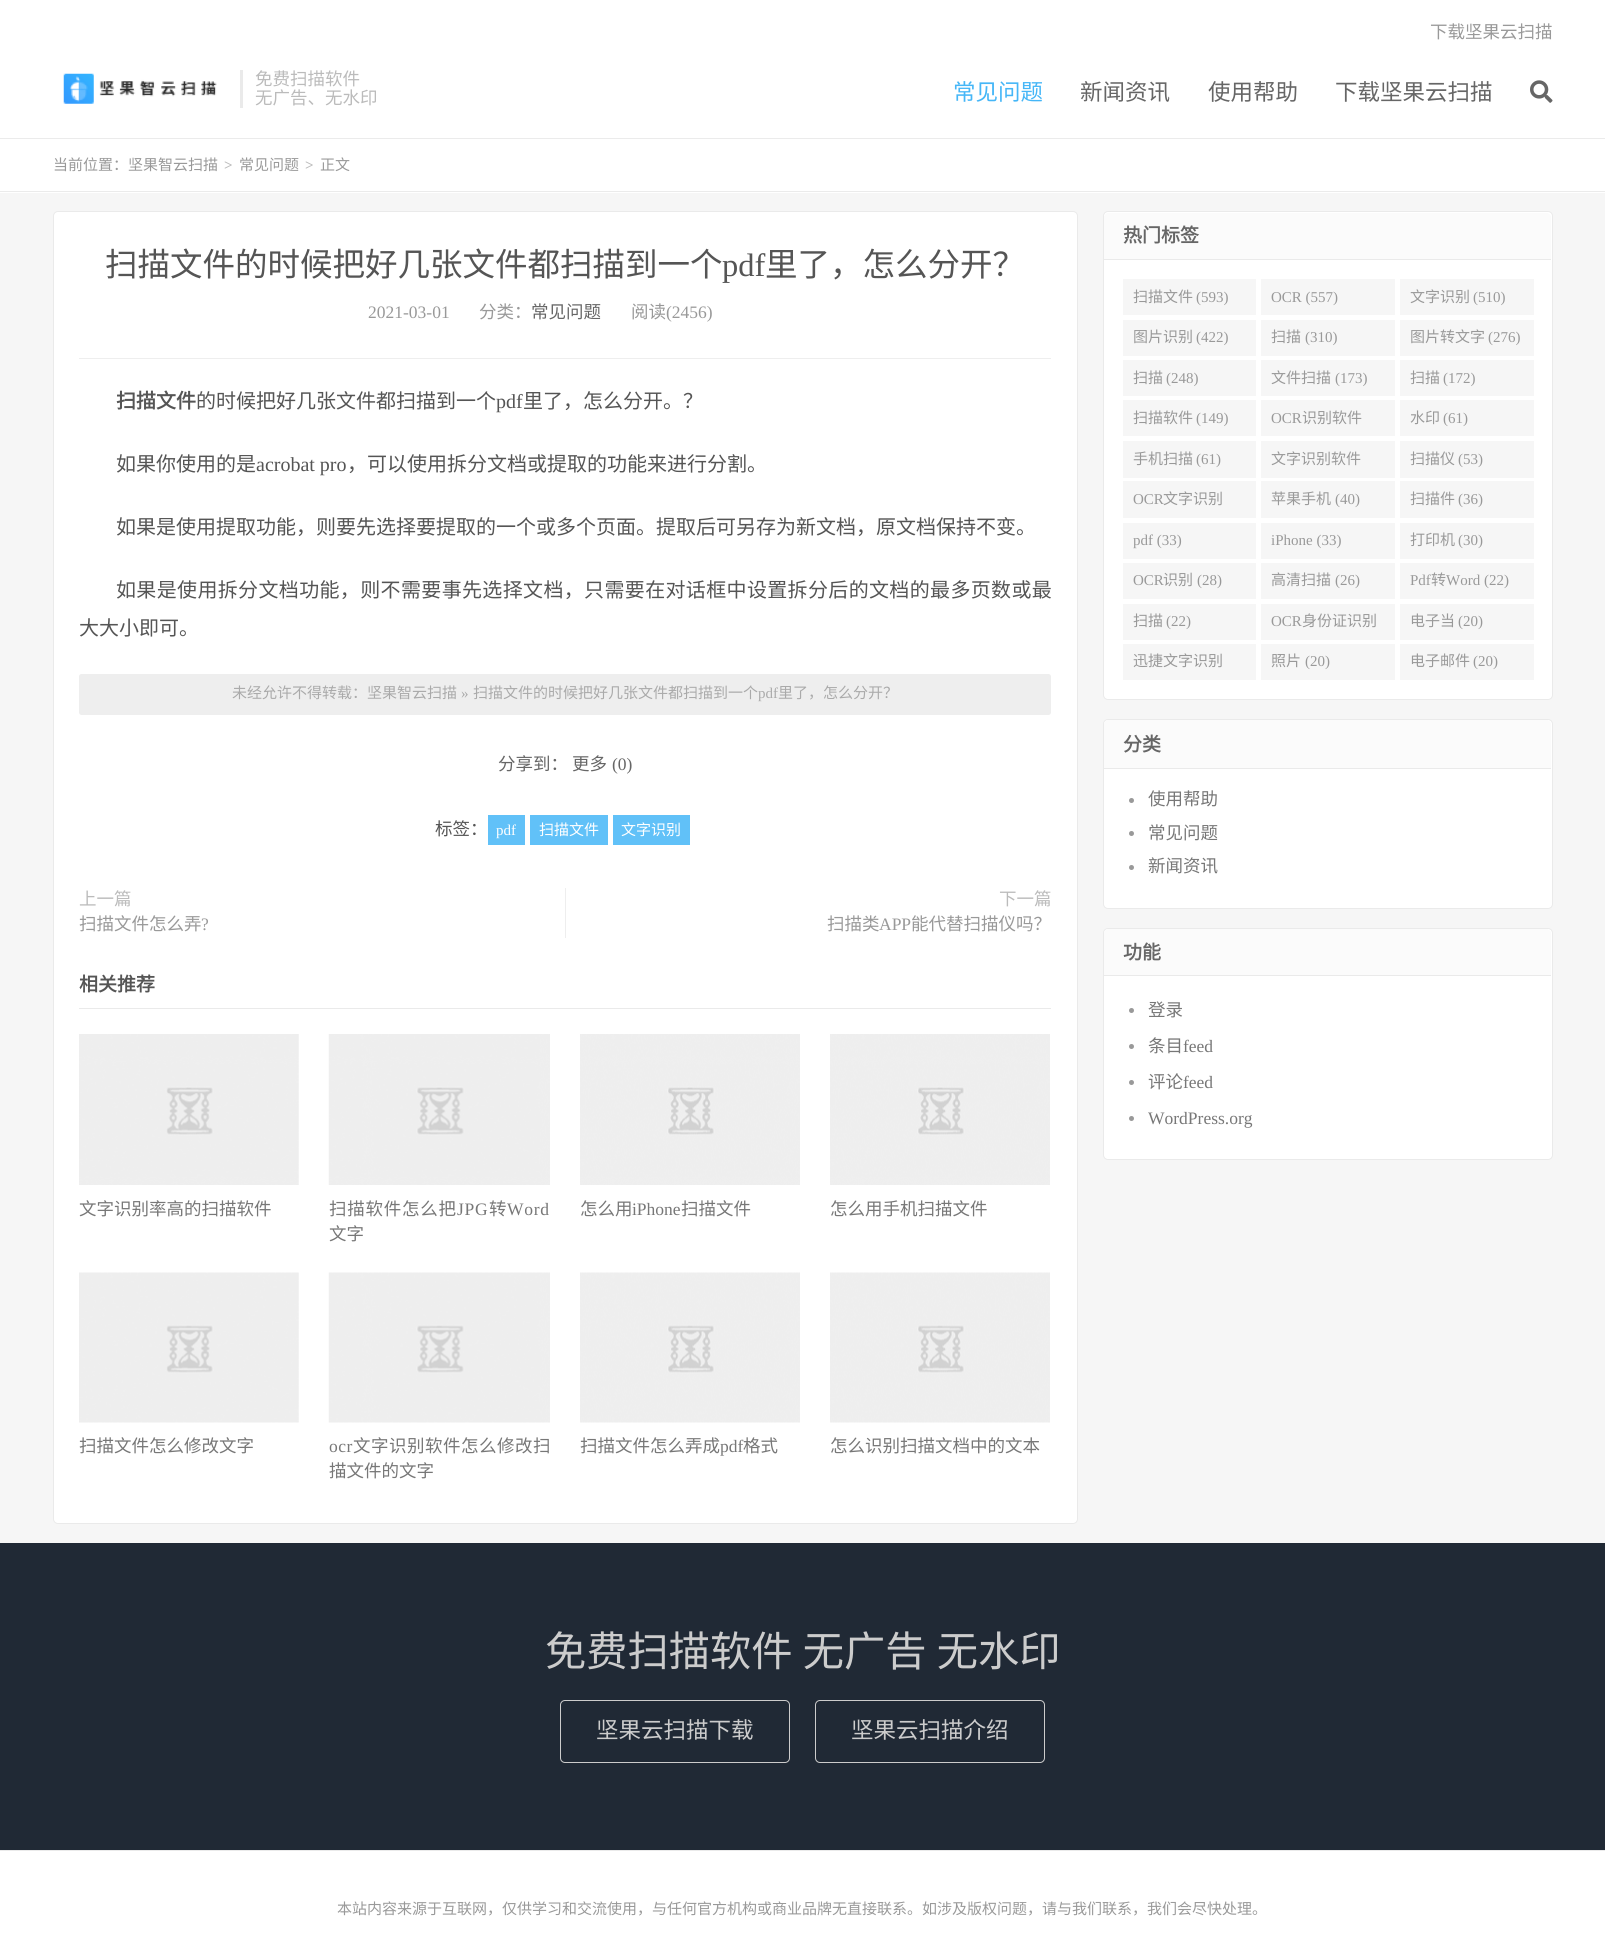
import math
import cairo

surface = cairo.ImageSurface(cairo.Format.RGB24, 1605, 1934)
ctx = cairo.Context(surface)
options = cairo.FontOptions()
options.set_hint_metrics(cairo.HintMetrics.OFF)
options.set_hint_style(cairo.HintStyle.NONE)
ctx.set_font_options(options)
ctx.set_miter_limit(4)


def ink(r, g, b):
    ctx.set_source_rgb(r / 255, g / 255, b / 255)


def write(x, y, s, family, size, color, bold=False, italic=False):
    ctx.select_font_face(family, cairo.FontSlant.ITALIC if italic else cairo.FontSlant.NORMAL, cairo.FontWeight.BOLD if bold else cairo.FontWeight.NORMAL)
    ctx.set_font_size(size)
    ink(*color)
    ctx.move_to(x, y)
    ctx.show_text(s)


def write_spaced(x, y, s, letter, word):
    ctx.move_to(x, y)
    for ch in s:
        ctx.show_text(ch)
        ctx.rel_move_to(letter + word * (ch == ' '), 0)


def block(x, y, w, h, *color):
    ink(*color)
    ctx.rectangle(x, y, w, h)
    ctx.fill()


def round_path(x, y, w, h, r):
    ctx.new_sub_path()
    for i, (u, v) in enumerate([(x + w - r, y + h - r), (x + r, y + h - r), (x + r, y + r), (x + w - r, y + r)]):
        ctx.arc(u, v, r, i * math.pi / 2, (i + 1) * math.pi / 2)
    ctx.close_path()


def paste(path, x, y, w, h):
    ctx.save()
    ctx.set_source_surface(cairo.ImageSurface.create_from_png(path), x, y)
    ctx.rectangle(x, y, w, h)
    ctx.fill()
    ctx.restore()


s1 = dict(family="Noto Sans CJK SC", size=17.5, color=(153, 153, 153))
s2 = dict(family="Noto Sans CJK SC", size=17.5, color=(187, 187, 187))
s3 = dict(family="Noto Sans CJK SC", size=22.5, color=(69, 182, 247))
s4 = dict(family="Noto Sans CJK SC", size=22.5, color=(102, 102, 102))
s5 = dict(family="Noto Sans CJK SC", size=15, color=(153, 153, 153))
s6 = dict(family="Liberation Serif", size=15, color=(187, 187, 187), bold=True)
s7 = dict(family="Noto Sans CJK SC", size=32.5, color=(85, 85, 85))
s8 = dict(family="Liberation Serif", size=32.5, color=(85, 85, 85))
s9 = dict(family="Liberation Serif", size=17.5, color=(153, 153, 153))
s10 = dict(family="Noto Sans CJK SC", size=17.5, color=(102, 102, 102))
s11 = dict(family="Noto Sans CJK SC", size=20, color=(85, 85, 85), bold=True)
s12 = dict(family="Noto Sans CJK SC", size=20, color=(85, 85, 85))
s13 = dict(family="Liberation Serif", size=20, color=(85, 85, 85))
s14 = dict(family="Noto Sans CJK SC", size=15, color=(170, 170, 170))
s15 = dict(family="Liberation Serif", size=15, color=(170, 170, 170))
s16 = dict(family="Liberation Serif", size=17.5, color=(102, 102, 102))
s17 = dict(family="Noto Sans CJK SC", size=17.5, color=(85, 85, 85))
s18 = dict(family="Liberation Serif", size=15, color=(255, 255, 255))
s19 = dict(family="Noto Sans CJK SC", size=15, color=(255, 255, 255))
s20 = dict(family="Noto Sans CJK SC", size=19, color=(85, 85, 85), bold=True)
s21 = dict(family="Noto Sans CJK SC", size=17.5, color=(119, 119, 119))
s22 = dict(family="Liberation Serif", size=17.5, color=(119, 119, 119))
s23 = dict(family="Noto Sans CJK SC", size=19, color=(102, 102, 102), bold=True)
s24 = dict(family="Liberation Serif", size=15, color=(153, 153, 153))
s25 = dict(family="Noto Sans CJK SC", size=22.5, color=(204, 204, 204))

ink(246, 246, 246)
ctx.paint()
block(0, 0, 1605, 138, 255, 255, 255)
block(0, 138, 1605, 1, 235, 235, 235)
write(1430, 38, "下载坚果云扫描", **s1)
paste("pic1.png", 63, 73, 154, 31)
block(240, 70, 3, 38, 234, 234, 234)
write(255, 85, "免费扫描软件", **s2)
write(255, 104, "无广告、无水印", **s2)
write(953, 100, "常见问题", **s3)
write(1080, 100, "新闻资讯", **s4)
write(1208, 100, "使用帮助", **s4)
write(1335, 100, "下载坚果云扫描", **s4)
paste("pic2.png", 1530, 80, 23, 23)
block(0, 139, 1605, 54, 255, 255, 255)
block(0, 191, 1605, 1, 235, 235, 235)
write(53, 170, "当前位置：坚果智云扫描", **s5)
write(224, 170, ">", **s6)
write(239, 170, "常见问题", **s5)
write(305, 170, ">", **s6)
write(320, 170, "正文", **s5)
ink(255, 255, 255)
round_path(53.5, 211.5, 1024, 1312, 4.5)
ctx.fill_preserve()
ink(234, 234, 234)
ctx.set_line_width(1)
ctx.stroke()
block(79, 358, 972, 1, 238, 238, 238)
write(105, 276, "扫描文件的时候把好几张文件都扫描到一个", **s7)
write(722, 276, "pdf", **s8)
write(765, 276, "里了，怎么分开？", **s7)
write(368, 318, "2021-03-01", **s9)
write(479, 318, "分类：", **s1)
write(531, 318, "常见问题", **s10)
write(631, 318, "阅读", **s1)
write(666, 318, "(2456)", **s9)
write(116, 408, "扫描文件", **s11)
write(196, 408, "的时候把好几张文件都扫描到一个", **s12)
write(496, 408, "pdf", **s13)
write(523, 408, "里了，怎么分开。？", **s12)
write(116, 471, "如果你使用的是", **s12)
write(256, 471, "acrobat pro", **s13)
write(347, 471, "，可以使用拆分文档或提取的功能来进行分割。", **s12)
write(116, 534, "如果是使用提取功能，则要先选择要提取的一个或多个页面。提取后可另存为新文档，原文档保持不变。", **s12)
write_spaced(116, 597, "如果是使用拆分文档功能，则不需要事先选择文档，只需要在对话框中设置拆分后的文档的最多页数或最", 0.35, 0)
write(79, 635, "大大小即可。", **s12)
ink(238, 238, 238)
round_path(79, 674, 972, 41, 2.5)
ctx.fill()
write(232, 698, "未经允许不得转载：坚果智云扫描", **s14)
write(461, 698, "»", **s15)
write(473, 698, "扫描文件的时候把好几张文件都扫描到一个", **s14)
write(758, 698, "pdf", **s15)
write(778, 698, "里了，怎么分开？", **s14)
write(498, 770, "分享到：", **s10)
write(572, 770, "更多", **s10)
write(612, 770, "(0)", **s16)
write(435, 835, "标签：", **s17)
block(488, 815, 37, 30, 97, 193, 248)
write(496, 835, "pdf", **s18)
block(530, 815, 78, 30, 97, 193, 248)
write(539, 835, "扫描文件", **s19)
block(613, 815, 77, 30, 97, 193, 248)
write(621, 835, "文字识别", **s19)
write(79, 905, "上一篇", **s2)
write(79, 930, "扫描文件怎么弄", **s1)
write(201, 930, "?", **s9)
block(565, 888, 1, 50, 238, 238, 238)
write(999, 905, "下一篇", **s2)
write(827, 930, "扫描类", **s1)
write(879, 930, "APP", **s9)
write(911, 930, "能代替扫描仪吗？", **s1)
block(79, 1008, 972, 1, 234, 234, 234)
write(79, 991, "相关推荐", **s20)
paste("pic3.png", 79, 1034, 220, 151)
write(79, 1215, "文字识别率高的扫描软件", **s21)
paste("pic4.png", 328, 1034, 222, 151)
write_spaced(329, 1215, "扫描软件怎么把", 0.75, 0)
ctx.select_font_face("Liberation Serif")
write_spaced(457, 1215, "JPG", 0.75, 0)
ctx.select_font_face("Noto Sans CJK SC")
write_spaced(489, 1215, "转", 0.75, 0)
ctx.select_font_face("Liberation Serif")
write_spaced(507, 1215, "Word", 0.75, 0)
write(329, 1240, "文字", **s21)
paste("pic5.png", 580, 1034, 220, 151)
write(580, 1215, "怎么用", **s21)
write(632, 1215, "iPhone", **s22)
write(681, 1215, "扫描文件", **s21)
paste("pic5.png", 830, 1034, 220, 151)
write(830, 1215, "怎么用手机扫描文件", **s21)
paste("pic6.png", 79, 1272, 220, 151)
write(79, 1452, "扫描文件怎么修改文字", **s21)
paste("pic7.png", 328, 1272, 222, 151)
ctx.select_font_face("Liberation Serif")
write_spaced(329, 1452, "ocr", 0.5, 0)
ctx.select_font_face("Noto Sans CJK SC")
write_spaced(353, 1452, "文字识别软件怎么修改扫", 0.5, 0)
write(329, 1477, "描文件的文字", **s21)
paste("pic8.png", 580, 1272, 220, 151)
write(580, 1452, "扫描文件怎么弄成", **s21)
write(720, 1452, "pdf", **s22)
write(743, 1452, "格式", **s21)
paste("pic8.png", 830, 1272, 220, 151)
write(830, 1452, "怎么识别扫描文档中的文本", **s21)
ink(255, 255, 255)
round_path(1103.5, 211.5, 449, 488, 4.5)
ctx.fill_preserve()
ink(234, 234, 234)
ctx.stroke()
ink(251, 251, 251)
ctx.new_path()
ctx.move_to(1108, 213)
ctx.line_to(1547, 213)
ctx.curve_to(1549, 213, 1551, 215, 1551, 217)
ctx.line_to(1551, 260)
ctx.line_to(1104, 260)
ctx.line_to(1104, 217)
ctx.curve_to(1104, 215, 1106, 213, 1108, 213)
ctx.close_path()
ctx.fill()
block(1104, 259, 447, 1, 234, 234, 234)
write(1123, 242, "热门标签", **s23)
block(1123, 279, 133, 36, 246, 246, 246)
write(1133, 302, "扫描文件", **s5)
write(1196, 302, "(593)", **s24)
block(1261, 279, 134, 36, 246, 246, 246)
write(1271, 302, "OCR (557)", **s24)
block(1400, 279, 134, 36, 246, 246, 246)
write(1410, 302, "文字识别", **s5)
write(1473, 302, "(510)", **s24)
block(1123, 320, 133, 36, 246, 246, 246)
write(1133, 342, "图片识别", **s5)
write(1196, 342, "(422)", **s24)
block(1261, 320, 134, 36, 246, 246, 246)
write(1271, 342, "扫描", **s5)
write(1305, 342, "(310)", **s24)
block(1400, 320, 134, 36, 246, 246, 246)
write(1410, 342, "图片转文字", **s5)
write(1488, 342, "(276)", **s24)
block(1123, 360, 133, 36, 246, 246, 246)
write(1133, 383, "扫描", **s5)
write(1166, 383, "(248)", **s24)
block(1261, 360, 134, 36, 246, 246, 246)
write(1271, 383, "文件扫描", **s5)
write(1335, 383, "(173)", **s24)
block(1400, 360, 134, 36, 246, 246, 246)
write(1410, 383, "扫描", **s5)
write(1443, 383, "(172)", **s24)
block(1123, 400, 133, 36, 246, 246, 246)
write(1133, 423, "扫描软件", **s5)
write(1196, 423, "(149)", **s24)
block(1261, 400, 134, 36, 246, 246, 246)
write(1271, 423, "OCR", **s24)
write(1302, 423, "识别软件", **s5)
block(1400, 400, 134, 36, 246, 246, 246)
write(1410, 423, "水印", **s5)
write(1443, 423, "(61)", **s24)
block(1123, 441, 133, 37, 246, 246, 246)
write(1133, 464, "手机扫描", **s5)
write(1196, 464, "(61)", **s24)
block(1261, 441, 134, 37, 246, 246, 246)
write(1271, 464, "文字识别软件", **s5)
block(1400, 441, 134, 37, 246, 246, 246)
write(1410, 464, "扫描仪", **s5)
write(1458, 464, "(53)", **s24)
block(1123, 481, 133, 37, 246, 246, 246)
write(1133, 504, "OCR", **s24)
write(1163, 504, "文字识别", **s5)
block(1261, 481, 134, 37, 246, 246, 246)
write(1271, 504, "苹果手机", **s5)
write(1335, 504, "(40)", **s24)
block(1400, 481, 134, 37, 246, 246, 246)
write(1410, 504, "扫描件", **s5)
write(1458, 504, "(36)", **s24)
block(1123, 523, 133, 36, 246, 246, 246)
write(1133, 545, "pdf (33)", **s24)
block(1261, 523, 134, 36, 246, 246, 246)
write(1271, 545, "iPhone (33)", **s24)
block(1400, 523, 134, 36, 246, 246, 246)
write(1410, 545, "打印机", **s5)
write(1458, 545, "(30)", **s24)
block(1123, 563, 133, 36, 246, 246, 246)
write(1133, 585, "OCR", **s24)
write(1163, 585, "识别", **s5)
write(1197, 585, "(28)", **s24)
block(1261, 563, 134, 36, 246, 246, 246)
write(1271, 585, "高清扫描", **s5)
write(1335, 585, "(26)", **s24)
block(1400, 563, 134, 36, 246, 246, 246)
write(1410, 585, "Pdf", **s24)
write(1431, 585, "转", **s5)
write(1446, 585, "Word (22)", **s24)
block(1123, 604, 133, 36, 246, 246, 246)
write(1133, 626, "扫描", **s5)
write(1166, 626, "(22)", **s24)
block(1261, 604, 134, 36, 246, 246, 246)
write(1271, 626, "OCR", **s24)
write(1302, 626, "身份证识别", **s5)
block(1400, 604, 134, 36, 246, 246, 246)
write(1410, 626, "电子当", **s5)
write(1458, 626, "(20)", **s24)
block(1123, 644, 133, 36, 246, 246, 246)
write(1133, 666, "迅捷文字识别", **s5)
block(1261, 644, 134, 36, 246, 246, 246)
write(1271, 666, "照片", **s5)
write(1305, 666, "(20)", **s24)
block(1400, 644, 134, 36, 246, 246, 246)
write(1410, 666, "电子邮件", **s5)
write(1473, 666, "(20)", **s24)
ink(255, 255, 255)
round_path(1103.5, 719.5, 449, 189, 4.5)
ctx.fill_preserve()
ink(234, 234, 234)
ctx.stroke()
ink(251, 251, 251)
ctx.new_path()
ctx.move_to(1108, 720)
ctx.line_to(1547, 720)
ctx.curve_to(1549, 720, 1551, 722, 1551, 724)
ctx.line_to(1551, 769)
ctx.line_to(1104, 769)
ctx.line_to(1104, 724)
ctx.curve_to(1104, 722, 1106, 720, 1108, 720)
ctx.close_path()
ctx.fill()
block(1104, 768, 447, 1, 234, 234, 234)
write(1123, 751, "分类", **s23)
ink(153, 153, 153)
ctx.new_path()
ctx.arc(1131.5, 800.5, 2.5, 0, 2 * math.pi)
ctx.fill()
write(1148, 805, "使用帮助", **s21)
ink(153, 153, 153)
ctx.new_path()
ctx.arc(1131.5, 833.5, 2.5, 0, 2 * math.pi)
ctx.fill()
write(1148, 839, "常见问题", **s21)
ink(153, 153, 153)
ctx.new_path()
ctx.arc(1131.5, 867.5, 2.5, 0, 2 * math.pi)
ctx.fill()
write(1148, 872, "新闻资讯", **s21)
ink(255, 255, 255)
round_path(1103.5, 928.5, 449, 231, 4.5)
ctx.fill_preserve()
ink(234, 234, 234)
ctx.stroke()
ink(251, 251, 251)
ctx.new_path()
ctx.move_to(1108, 929)
ctx.line_to(1547, 929)
ctx.curve_to(1549, 929, 1551, 931, 1551, 933)
ctx.line_to(1551, 976)
ctx.line_to(1104, 976)
ctx.line_to(1104, 933)
ctx.curve_to(1104, 931, 1106, 929, 1108, 929)
ctx.close_path()
ctx.fill()
block(1104, 975, 447, 1, 234, 234, 234)
write(1123, 959, "功能", **s23)
ink(153, 153, 153)
ctx.new_path()
ctx.arc(1131.5, 1010.5, 2.5, 0, 2 * math.pi)
ctx.fill()
write(1148, 1016, "登录", **s21)
ink(153, 153, 153)
ctx.new_path()
ctx.arc(1131.5, 1046.5, 2.5, 0, 2 * math.pi)
ctx.fill()
write(1148, 1052, "条目", **s21)
write(1183, 1052, "feed", **s22)
ink(153, 153, 153)
ctx.new_path()
ctx.arc(1131.5, 1082.5, 2.5, 0, 2 * math.pi)
ctx.fill()
write(1148, 1088, "评论", **s21)
write(1183, 1088, "feed", **s22)
ink(153, 153, 153)
ctx.new_path()
ctx.arc(1131.5, 1118.5, 2.5, 0, 2 * math.pi)
ctx.fill()
write(1148, 1124, "WordPress.org", **s22)
block(0, 1543, 1605, 307, 32, 41, 53)
ctx.select_font_face("Noto Sans CJK SC")
ctx.set_font_size(41.25)
ink(204, 204, 204)
write_spaced(545, 1666, "免费扫描软件 无广告 无水印", 0, 1)
round_path(560.5, 1700.5, 229, 62, 4.5)
ctx.stroke()
write(596, 1738, "坚果云扫描下载", **s25)
round_path(815.5, 1700.5, 229, 62, 4.5)
ctx.stroke()
write(851, 1738, "坚果云扫描介绍", **s25)
block(0, 1851, 1605, 83, 255, 255, 255)
block(0, 1850, 1605, 1, 234, 234, 234)
write(337, 1914, "本站内容来源于互联网，仅供学习和交流使用，与任何官方机构或商业品牌无直接联系。如涉及版权问题，请与我们联系，我们会尽快处理。", **s5)
surface.write_to_png("screenshot.png")
